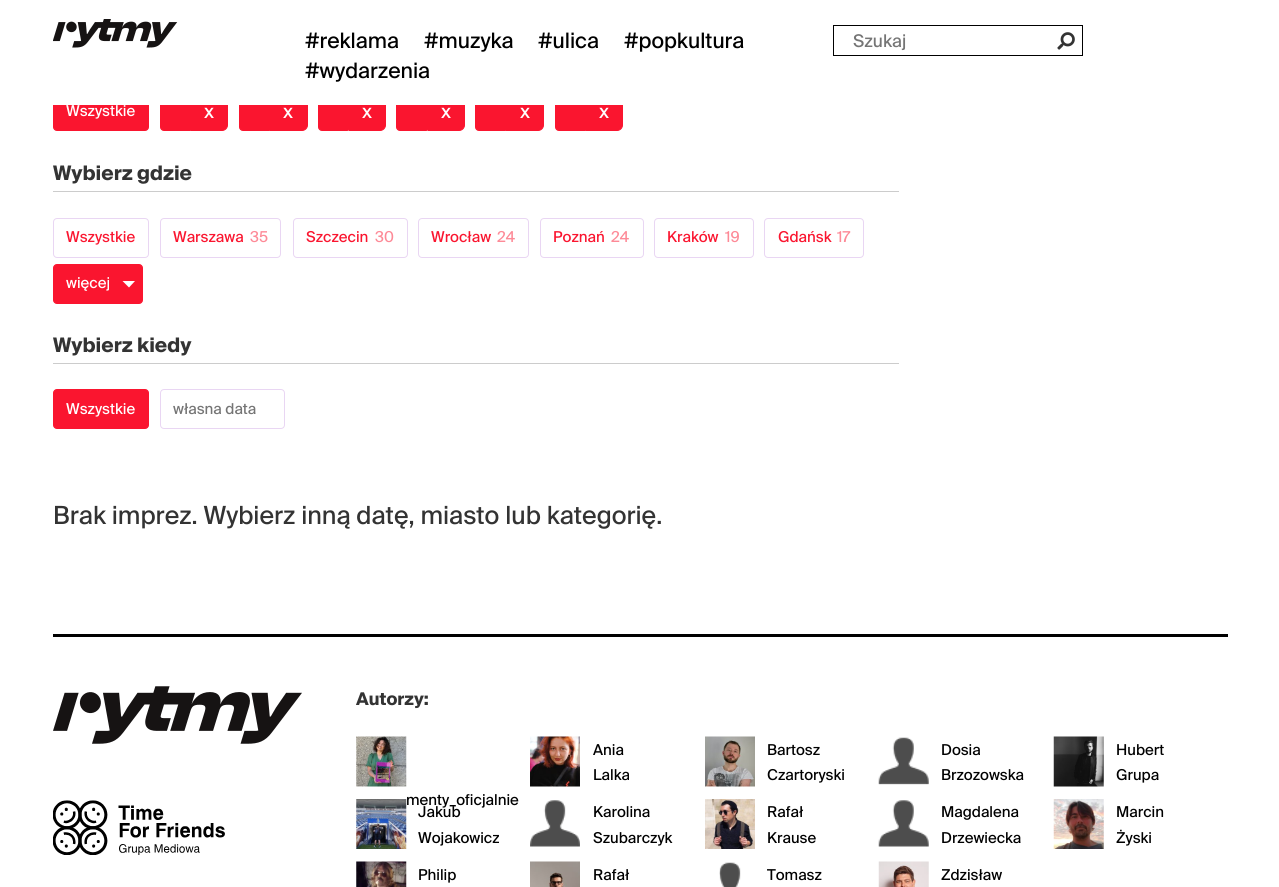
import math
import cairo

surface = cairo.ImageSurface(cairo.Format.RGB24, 1279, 887)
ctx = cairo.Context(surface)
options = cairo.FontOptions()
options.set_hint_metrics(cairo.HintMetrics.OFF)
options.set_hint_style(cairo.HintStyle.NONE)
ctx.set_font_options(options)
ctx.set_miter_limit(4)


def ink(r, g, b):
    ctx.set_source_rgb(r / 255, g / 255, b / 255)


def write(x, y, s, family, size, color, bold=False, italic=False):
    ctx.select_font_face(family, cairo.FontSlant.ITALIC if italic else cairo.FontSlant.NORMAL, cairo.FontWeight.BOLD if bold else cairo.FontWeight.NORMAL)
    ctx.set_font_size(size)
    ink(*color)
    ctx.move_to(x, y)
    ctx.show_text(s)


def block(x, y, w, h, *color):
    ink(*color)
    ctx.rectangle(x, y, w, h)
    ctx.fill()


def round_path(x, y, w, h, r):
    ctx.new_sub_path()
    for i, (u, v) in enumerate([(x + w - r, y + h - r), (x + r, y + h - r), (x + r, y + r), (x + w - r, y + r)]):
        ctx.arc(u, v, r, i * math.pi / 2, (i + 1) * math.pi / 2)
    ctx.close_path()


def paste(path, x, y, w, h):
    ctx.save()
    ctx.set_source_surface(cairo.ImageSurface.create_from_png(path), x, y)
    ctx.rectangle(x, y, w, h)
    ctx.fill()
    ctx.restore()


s1 = dict(family="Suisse", size=21.25, color=(0, 0, 0))
s2 = dict(family="Suisse", size=17.5, color=(117, 117, 117))
s3 = dict(family="Suisse", size=15, color=(255, 255, 255))
s4 = dict(family="Suisse", size=19, color=(255, 255, 255))
s5 = dict(family="Suisse", size=20, color=(51, 51, 51), bold=True)
s6 = dict(family="Suisse", size=15, color=(250, 21, 47))
s7 = dict(family="Suisse", size=15, color=(253, 138, 151))
s8 = dict(family="Suisse", size=15, color=(117, 117, 117))
s9 = dict(family="Suisse", size=25, color=(51, 51, 51))
s10 = dict(family="Suisse", size=17.5, color=(51, 51, 51), bold=True)
s11 = dict(family="Suisse", size=15, color=(0, 0, 0))

ink(255, 255, 255)
ctx.paint()
ink(250, 21, 47)
round_path(53.5, 91.5, 95, 39, 3.5)
ctx.fill_preserve()
ctx.set_line_width(1)
ctx.stroke()
round_path(160.5, 91.5, 33, 39, 3.5)
ctx.fill_preserve()
ctx.stroke()
ctx.new_path()
ctx.move_to(191.5, 91.5)
ctx.line_to(222, 91.5)
ctx.curve_to(225, 91.5, 227.5, 94, 227.5, 97)
ctx.line_to(227.5, 125)
ctx.curve_to(227.5, 128, 225, 130.5, 222, 130.5)
ctx.line_to(191.5, 130.5)
ctx.close_path()
ctx.fill_preserve()
ctx.stroke()
round_path(239.5, 91.5, 33, 39, 3.5)
ctx.fill_preserve()
ctx.stroke()
ctx.new_path()
ctx.move_to(270.5, 91.5)
ctx.line_to(302, 91.5)
ctx.curve_to(305, 91.5, 307.5, 94, 307.5, 97)
ctx.line_to(307.5, 125)
ctx.curve_to(307.5, 128, 305, 130.5, 302, 130.5)
ctx.line_to(270.5, 130.5)
ctx.close_path()
ctx.fill_preserve()
ctx.stroke()
round_path(318.5, 91.5, 32, 39, 3.5)
ctx.fill_preserve()
ctx.stroke()
ctx.new_path()
ctx.move_to(349.5, 91.5)
ctx.line_to(380, 91.5)
ctx.curve_to(383, 91.5, 385.5, 94, 385.5, 97)
ctx.line_to(385.5, 125)
ctx.curve_to(385.5, 128, 383, 130.5, 380, 130.5)
ctx.line_to(349.5, 130.5)
ctx.close_path()
ctx.fill_preserve()
ctx.stroke()
round_path(396.5, 91.5, 33, 39, 3.5)
ctx.fill_preserve()
ctx.stroke()
ctx.new_path()
ctx.move_to(428.5, 91.5)
ctx.line_to(459, 91.5)
ctx.curve_to(462, 91.5, 464.5, 94, 464.5, 97)
ctx.line_to(464.5, 125)
ctx.curve_to(464.5, 128, 462, 130.5, 459, 130.5)
ctx.line_to(428.5, 130.5)
ctx.close_path()
ctx.fill_preserve()
ctx.stroke()
round_path(475.5, 91.5, 33, 39, 3.5)
ctx.fill_preserve()
ctx.stroke()
ctx.new_path()
ctx.move_to(506.5, 91.5)
ctx.line_to(538, 91.5)
ctx.curve_to(541, 91.5, 543.5, 94, 543.5, 97)
ctx.line_to(543.5, 125)
ctx.curve_to(543.5, 128, 541, 130.5, 538, 130.5)
ctx.line_to(506.5, 130.5)
ctx.close_path()
ctx.fill_preserve()
ctx.stroke()
round_path(555.5, 91.5, 33, 39, 3.5)
ctx.fill_preserve()
ctx.stroke()
ctx.new_path()
ctx.move_to(586.5, 91.5)
ctx.line_to(617, 91.5)
ctx.curve_to(620, 91.5, 622.5, 94, 622.5, 97)
ctx.line_to(622.5, 125)
ctx.curve_to(622.5, 128, 620, 130.5, 617, 130.5)
ctx.line_to(586.5, 130.5)
ctx.close_path()
ctx.fill_preserve()
ctx.stroke()
block(53, 91, 570, 14, 255, 255, 255)
paste("pic1.png", 53, 19, 125, 29)
write(305, 48, "#reklama", **s1)
write(424, 48, "#muzyka", **s1)
write(538, 48, "#ulica", **s1)
write(624, 48, "#popkultura", **s1)
write(305, 78, "#wydarzenia", **s1)
ctx.rectangle(833.5, 25.5, 249, 30)
ctx.stroke()
write(853, 47, "Szukaj", **s2)
paste("pic2.png", 1057, 32, 18, 18)
write(66, 116, "Wszystkie", **s3)
write(204, 118, "x", **s4)
write(283, 118, "x", **s4)
write(362, 118, "x", **s4)
write(441, 118, "x", **s4)
write(520, 118, "x", **s4)
write(599, 118, "x", **s4)
block(53, 191, 846, 1, 204, 204, 204)
write(53, 180, "Wybierz gdzie", **s5)
round_path(53.5, 218.5, 95, 39, 3.5)
ink(233, 214, 243)
ctx.stroke()
write(66, 242, "Wszystkie", **s6)
round_path(160.5, 218.5, 120, 39, 3.5)
ink(233, 214, 243)
ctx.stroke()
write(173, 242, "Warszawa", **s6)
write(250, 242, "35", **s7)
round_path(293.5, 218.5, 114, 39, 3.5)
ink(233, 214, 243)
ctx.stroke()
write(306, 242, "Szczecin", **s6)
write(375, 242, "30", **s7)
round_path(418.5, 218.5, 110, 39, 3.5)
ink(233, 214, 243)
ctx.stroke()
write(431, 242, "Wrocław", **s6)
write(497, 242, "24", **s7)
round_path(540.5, 218.5, 103, 39, 3.5)
ink(233, 214, 243)
ctx.stroke()
write(553, 242, "Poznań", **s6)
write(611, 242, "24", **s7)
round_path(654.5, 218.5, 99, 39, 3.5)
ink(233, 214, 243)
ctx.stroke()
write(667, 242, "Kraków", **s6)
write(725, 242, "19", **s7)
round_path(764.5, 218.5, 99, 39, 3.5)
ink(233, 214, 243)
ctx.stroke()
write(778, 242, "Gdańsk", **s6)
write(837, 242, "17", **s7)
ink(250, 21, 47)
round_path(53.5, 264.5, 89, 39, 3.5)
ctx.fill_preserve()
ctx.stroke()
write(66, 288, "więcej", **s3)
ctx.new_path()
ctx.move_to(122.5, 281)
ctx.line_to(135, 281)
ctx.line_to(129, 287.5)
ctx.close_path()
ctx.fill()
block(53, 363, 846, 1, 204, 204, 204)
write(53, 352, "Wybierz kiedy", **s5)
ink(250, 21, 47)
round_path(53.5, 389.5, 95, 39, 3.5)
ctx.fill_preserve()
ctx.stroke()
write(66, 414, "Wszystkie", **s3)
round_path(160.5, 389.5, 124, 39, 3.5)
ink(233, 214, 243)
ctx.stroke()
write(173, 414, "własna data", **s8)
write(53, 524, "Brak imprez. Wybierz inną datę, miasto lub kategorię.", **s9)
block(53, 634, 1175, 3, 0, 0, 0)
paste("pic3.png", 53, 686, 249, 58)
paste("pic4.png", 53, 800, 172, 55)
write(356, 705, "Autorzy:", **s10)
paste("pic5.png", 530, 736, 50, 51)
write(593, 755, "Ania", **s11)
write(593, 780, "Lalka", **s11)
paste("pic6.png", 705, 736, 50, 51)
write(767, 755, "Bartosz", **s11)
write(767, 780, "Czartoryski", **s11)
paste("pic7.png", 878, 737, 51, 48)
write(941, 755, "Dosia", **s11)
write(941, 780, "Brzozowska", **s11)
paste("pic8.png", 1053, 736, 51, 51)
write(1116, 755, "Hubert", **s11)
write(1116, 780, "Grupa", **s11)
paste("pic9.png", 356, 736, 51, 51)
write(406, 805, "menty_oficjalnie", **s11)
paste("pic10.png", 356, 799, 51, 50)
write(418, 817, "Jakub", **s11)
write(418, 843, "Wojakowicz", **s11)
paste("pic11.png", 530, 800, 50, 47)
write(593, 817, "Karolina", **s11)
write(593, 843, "Szubarczyk", **s11)
paste("pic12.png", 705, 799, 50, 50)
write(767, 817, "Rafał", **s11)
write(767, 843, "Krause", **s11)
paste("pic13.png", 878, 800, 51, 47)
write(941, 817, "Magdalena", **s11)
write(941, 843, "Drzewiecka", **s11)
paste("pic14.png", 1053, 799, 51, 50)
write(1116, 817, "Marcin", **s11)
write(1116, 843, "Żyski", **s11)
paste("pic15.png", 356, 861, 51, 26)
write(418, 880, "Philip", **s11)
paste("pic16.png", 530, 861, 50, 26)
write(593, 880, "Rafał", **s11)
paste("pic17.png", 719, 862, 22, 25)
write(767, 880, "Tomasz", **s11)
paste("pic18.png", 878, 861, 51, 26)
write(941, 880, "Zdzisław", **s11)
surface.write_to_png("screenshot.png")
